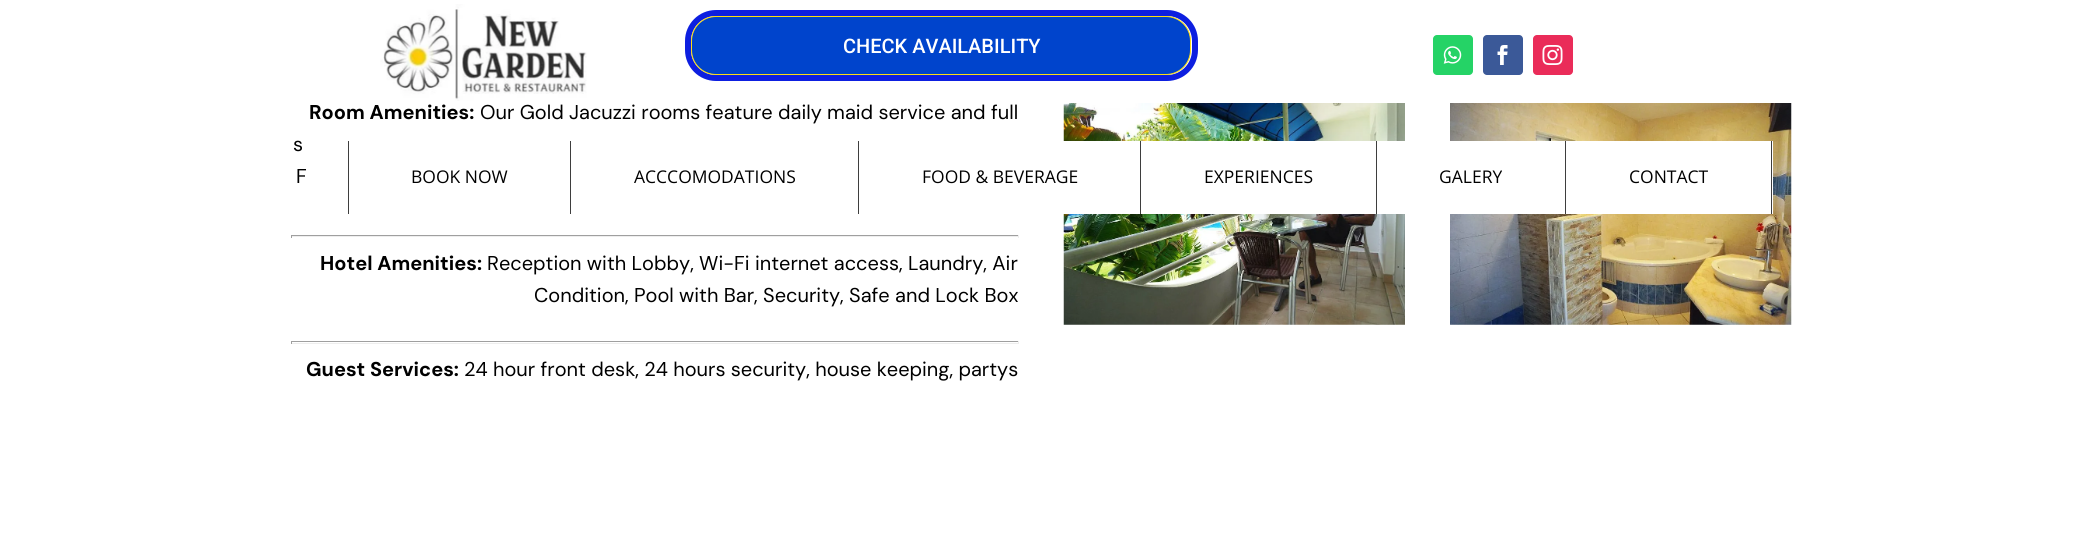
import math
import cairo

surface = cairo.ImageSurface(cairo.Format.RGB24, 2081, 534)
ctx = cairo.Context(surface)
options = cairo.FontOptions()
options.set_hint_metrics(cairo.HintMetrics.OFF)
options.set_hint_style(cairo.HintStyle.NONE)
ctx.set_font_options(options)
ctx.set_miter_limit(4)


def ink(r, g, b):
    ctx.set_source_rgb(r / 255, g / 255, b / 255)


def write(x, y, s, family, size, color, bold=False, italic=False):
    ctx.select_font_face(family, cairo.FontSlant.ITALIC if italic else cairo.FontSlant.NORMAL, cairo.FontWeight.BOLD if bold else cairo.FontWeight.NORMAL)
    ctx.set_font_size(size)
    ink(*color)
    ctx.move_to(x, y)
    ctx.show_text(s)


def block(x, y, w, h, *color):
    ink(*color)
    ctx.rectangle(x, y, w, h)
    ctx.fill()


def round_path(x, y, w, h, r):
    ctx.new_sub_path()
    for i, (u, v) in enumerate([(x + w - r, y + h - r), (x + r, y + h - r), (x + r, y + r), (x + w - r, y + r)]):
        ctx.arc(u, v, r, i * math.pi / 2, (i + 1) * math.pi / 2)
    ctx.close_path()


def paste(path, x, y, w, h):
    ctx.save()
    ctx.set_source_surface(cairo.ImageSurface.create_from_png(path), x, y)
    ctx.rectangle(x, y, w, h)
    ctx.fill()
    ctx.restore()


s1 = dict(family="Roboto Medium", size=20, color=(255, 255, 255))
s2 = dict(family="Open Sans", size=17.5, color=(0, 0, 0))
s3 = dict(family="DM Sans", size=20, color=(0, 0, 0), bold=True)
s4 = dict(family="DM Sans", size=20, color=(0, 0, 0))

ink(255, 255, 255)
ctx.paint()
paste("pic1.png", 380, 4, 207, 97)
round_path(688, 13, 507, 65, 28)
ink(13, 31, 224)
ctx.set_line_width(6)
ctx.stroke()
ink(0, 68, 204)
round_path(691.5, 16.5, 499, 58, 24.5)
ctx.fill_preserve()
ink(253, 221, 17)
ctx.set_line_width(1)
ctx.stroke()
write(843, 53, "CHECK AVAILABILITY", **s1)
ink(37, 211, 102)
round_path(1433, 35, 40, 40, 4)
ctx.fill()
paste("pic2.png", 1443, 46, 19, 18)
ink(59, 89, 152)
round_path(1483, 35, 40, 40, 4)
ctx.fill()
paste("pic3.png", 1497, 45, 11, 20)
ink(234, 44, 89)
round_path(1533, 35, 40, 40, 4)
ctx.fill()
paste("pic4.png", 1542, 45, 21, 20)
paste("pic5.png", 1063, 103, 342, 222)
paste("pic6.png", 1450, 103, 342, 222)
block(1063, 141, 710, 73, 255, 255, 255)
block(348, 141, 1, 73, 62, 62, 62)
write(411, 183, "BOOK NOW", **s2)
block(570, 141, 1, 73, 62, 62, 62)
write(634, 183, "ACCCOMODATIONS", **s2)
block(858, 141, 1, 73, 62, 62, 62)
write(922, 183, "FOOD & BEVERAGE", **s2)
block(1140, 141, 1, 73, 62, 62, 62)
write(1204, 183, "EXPERIENCES", **s2)
block(1376, 141, 1, 73, 62, 62, 62)
write(1439, 183, "GALERY", **s2)
block(1771, 141, 1, 73, 62, 62, 62)
block(1565, 141, 1, 73, 62, 62, 62)
write(1629, 183, "CONTACT", **s2)
write(309, 119, "Room Amenities:", **s3)
write(480, 119, "Our Gold Jacuzzi rooms feature daily maid service and full", **s4)
write(293, 151, "s", **s4)
write(296, 183, "F", **s4)
block(291, 235, 728, 1, 159, 159, 159)
block(1018, 235, 1, 3, 238, 238, 238)
block(291, 236, 728, 1, 238, 238, 238)
block(291, 235, 1, 3, 159, 159, 159)
write(320, 270, "Hotel Amenities:", **s3)
write(487, 270, "Reception with Lobby, Wi-Fi internet access, Laundry, Air", **s4)
write(534, 302, "Condition, Pool with Bar, Security, Safe and Lock Box", **s4)
block(291, 341, 728, 1, 159, 159, 159)
block(1018, 341, 1, 3, 238, 238, 238)
block(291, 343, 728, 1, 238, 238, 238)
block(291, 341, 1, 3, 159, 159, 159)
write(306, 376, "Guest Services:", **s3)
write(464, 376, "24 hour front desk, 24 hours security, house keeping, partys", **s4)
surface.write_to_png("screenshot.png")
